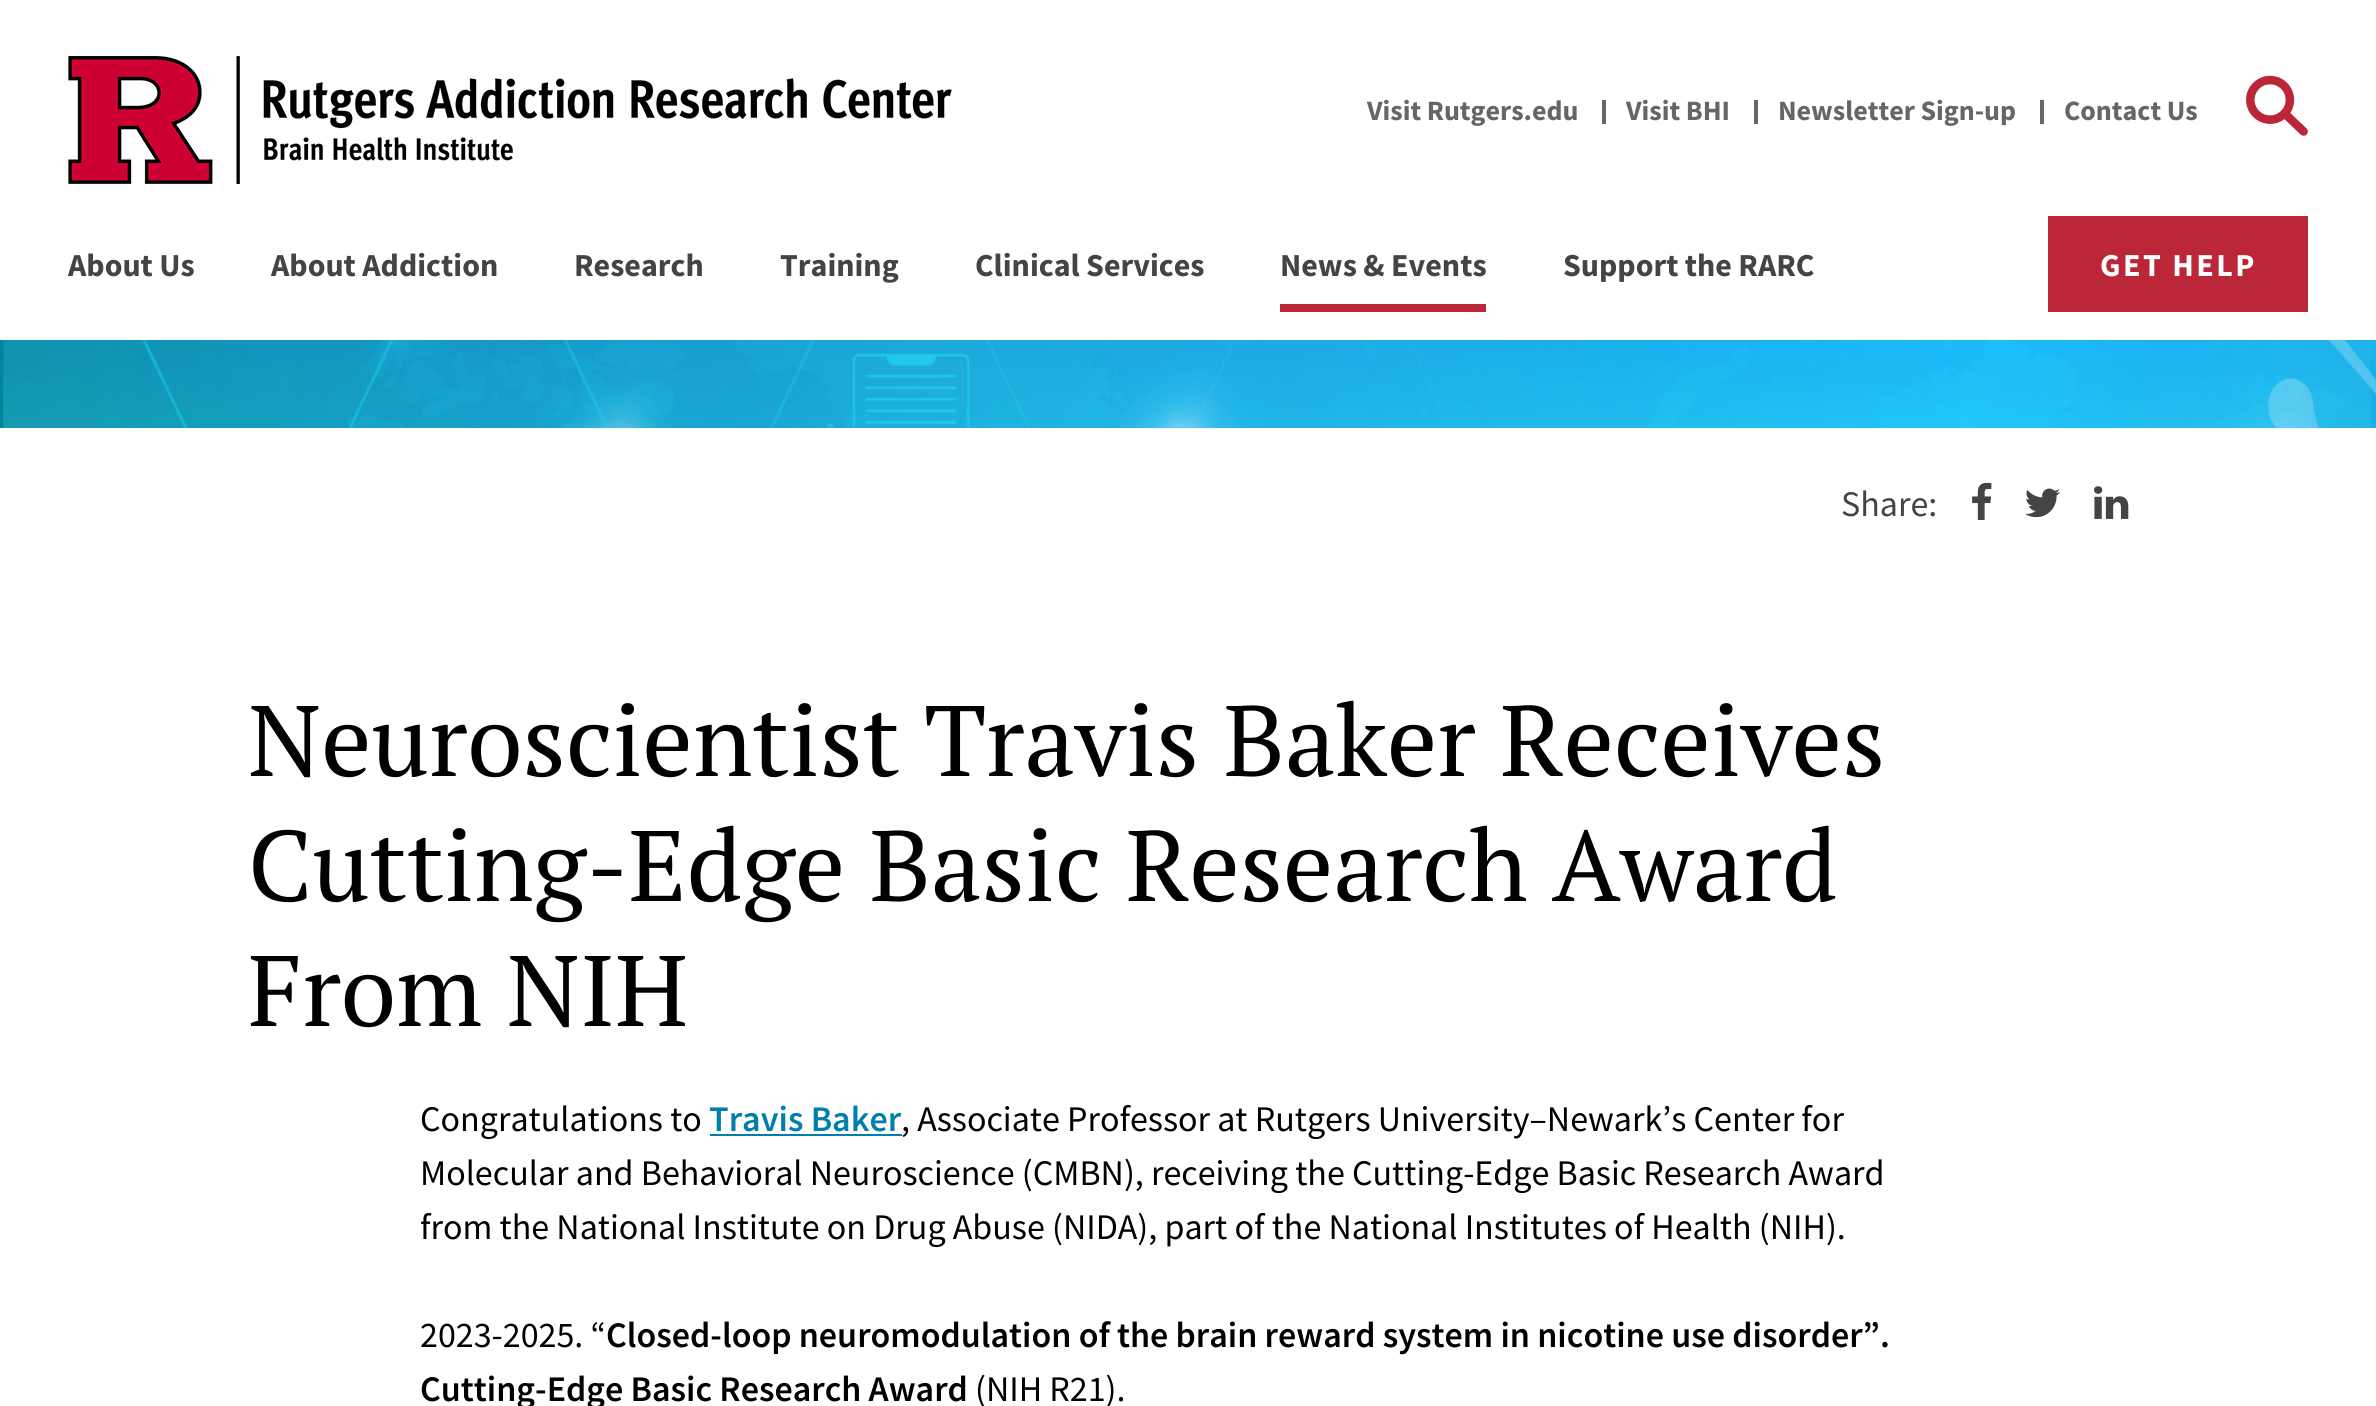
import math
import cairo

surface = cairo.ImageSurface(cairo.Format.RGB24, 2376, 1406)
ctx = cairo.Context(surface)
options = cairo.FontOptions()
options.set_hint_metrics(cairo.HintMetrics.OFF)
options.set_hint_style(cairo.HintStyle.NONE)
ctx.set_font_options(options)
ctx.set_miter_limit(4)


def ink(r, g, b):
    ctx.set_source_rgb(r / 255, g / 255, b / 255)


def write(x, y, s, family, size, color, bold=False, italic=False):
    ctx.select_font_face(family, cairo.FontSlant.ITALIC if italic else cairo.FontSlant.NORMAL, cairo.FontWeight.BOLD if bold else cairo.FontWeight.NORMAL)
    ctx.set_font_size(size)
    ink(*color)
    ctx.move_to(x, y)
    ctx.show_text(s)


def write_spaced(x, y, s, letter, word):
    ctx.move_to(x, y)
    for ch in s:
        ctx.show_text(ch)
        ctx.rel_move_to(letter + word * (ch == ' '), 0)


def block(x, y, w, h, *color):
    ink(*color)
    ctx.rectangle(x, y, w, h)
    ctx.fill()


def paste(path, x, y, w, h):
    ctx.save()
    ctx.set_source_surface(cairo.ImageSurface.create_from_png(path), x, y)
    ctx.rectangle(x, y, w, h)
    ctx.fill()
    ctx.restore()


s1 = dict(family="Source Sans Pro", size=28, color=(102, 102, 102), bold=True)
s2 = dict(family="Source Sans Pro", size=32, color=(68, 68, 68), bold=True)
s3 = dict(family="Source Sans Pro", size=36, color=(68, 68, 68))
s4 = dict(family="PT Serif", size=100, color=(0, 0, 0))
s5 = dict(family="Source Sans Pro", size=36, color=(0, 0, 0))
s6 = dict(family="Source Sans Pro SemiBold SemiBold", size=36, color=(0, 127, 172))
s7 = dict(family="Source Sans Pro SemiBold SemiBold", size=36, color=(0, 0, 0))

ink(255, 255, 255)
ctx.paint()
paste("pic1.png", 68, 56, 884, 128)
write(1367, 120, "Visit Rutgers.edu", **s1)
block(1602, 100, 4, 24, 102, 102, 102)
write(1626, 120, "Visit BHI", **s1)
block(1754, 100, 4, 24, 102, 102, 102)
write(1778, 120, "Newsletter Sign-up", **s1)
block(2040, 100, 4, 24, 102, 102, 102)
write(2064, 120, "Contact Us", **s1)
paste("pic2.png", 2246, 75, 62, 61)
write(68, 276, "About Us", **s2)
write(271, 276, "About Addiction", **s2)
write(574, 276, "Research", **s2)
write(780, 276, "Training", **s2)
write(975, 276, "Clinical Services", **s2)
write(1280, 276, "News & Events", **s2)
block(1280, 304, 206, 8, 187, 39, 57)
write(1563, 276, "Support the RARC", **s2)
block(2048, 216, 260, 96, 187, 39, 57)
ink(255, 255, 255)
write_spaced(2100, 276, "GET HELP", 2.5, 0)
paste("pic3.png", 0, 340, 2376, 88)
write(1841, 516, "Share:", **s3)
paste("pic4.png", 1972, 482, 20, 38)
paste("pic5.png", 2025, 488, 35, 30)
paste("pic6.png", 2094, 486, 35, 33)
write(248, 776, "Neuroscientist Travis Baker Receives", **s4)
write(248, 901, "Cutting-Edge Basic Research Award", **s4)
write(248, 1026, "From NIH", **s4)
write(420, 1131, "Congratulations to", **s5)
write(709, 1131, "Travis Baker", **s6)
block(710, 1134, 192, 2, 0, 127, 172)
write(901, 1131, ", Associate Professor at Rutgers University–Newark’s Center for", **s5)
write(420, 1185, "Molecular and Behavioral Neuroscience (CMBN), receiving the Cutting-Edge Basic Research Award", **s5)
write(420, 1239, "from the National Institute on Drug Abuse (NIDA), part of the National Institutes of Health (NIH).", **s5)
write(420, 1347, "2023-2025. “", **s5)
write(606, 1347, "Closed-loop neuromodulation of the brain reward system in nicotine use disorder”.", **s7)
write(420, 1401, "Cutting-Edge Basic Research Award", **s7)
write(975, 1401, "(NIH R21).", **s5)
surface.write_to_png("screenshot.png")
